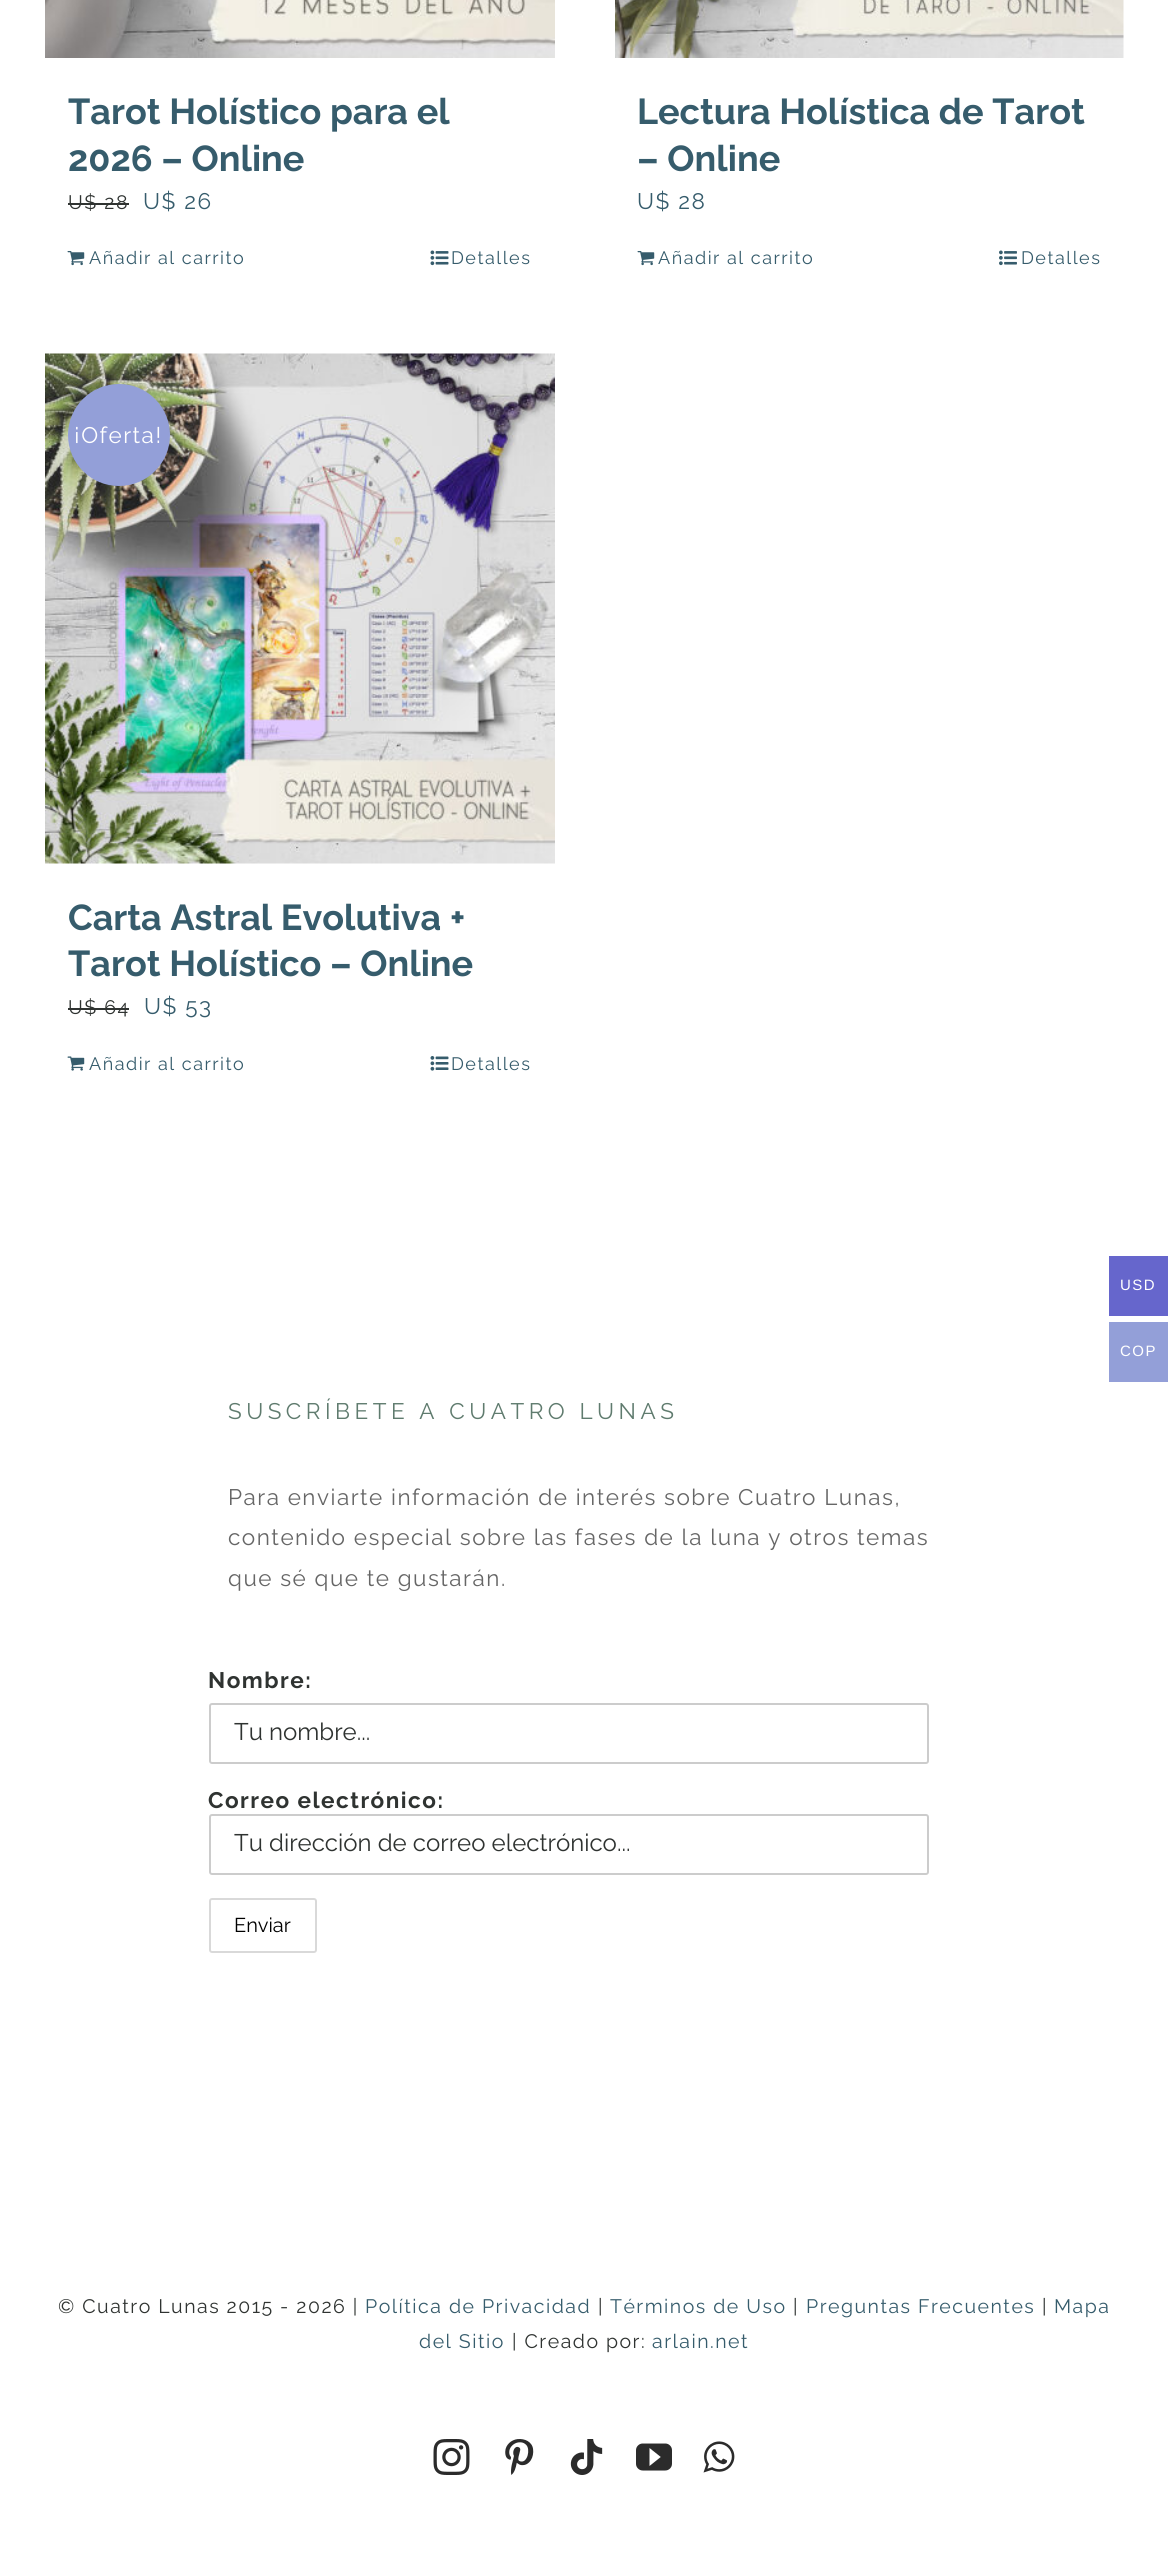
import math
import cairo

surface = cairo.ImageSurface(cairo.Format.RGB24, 1168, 2556)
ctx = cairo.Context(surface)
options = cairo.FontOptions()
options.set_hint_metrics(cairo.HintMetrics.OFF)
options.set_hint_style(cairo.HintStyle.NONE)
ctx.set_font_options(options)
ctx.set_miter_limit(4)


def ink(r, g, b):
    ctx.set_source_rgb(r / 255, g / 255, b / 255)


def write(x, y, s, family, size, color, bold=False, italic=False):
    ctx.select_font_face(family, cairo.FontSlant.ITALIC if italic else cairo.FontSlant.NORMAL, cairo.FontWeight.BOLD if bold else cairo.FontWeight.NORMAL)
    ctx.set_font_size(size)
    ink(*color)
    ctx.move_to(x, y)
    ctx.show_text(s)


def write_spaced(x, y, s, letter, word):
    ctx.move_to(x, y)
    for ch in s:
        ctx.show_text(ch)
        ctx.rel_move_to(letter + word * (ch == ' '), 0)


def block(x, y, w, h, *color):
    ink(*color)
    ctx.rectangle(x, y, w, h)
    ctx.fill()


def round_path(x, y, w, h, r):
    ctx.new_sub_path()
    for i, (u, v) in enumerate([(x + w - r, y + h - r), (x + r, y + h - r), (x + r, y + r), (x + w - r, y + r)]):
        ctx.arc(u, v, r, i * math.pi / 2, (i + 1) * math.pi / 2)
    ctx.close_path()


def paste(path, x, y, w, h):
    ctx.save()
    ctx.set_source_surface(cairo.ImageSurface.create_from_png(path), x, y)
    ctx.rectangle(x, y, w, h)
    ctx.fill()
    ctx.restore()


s1 = dict(family="Raleway", size=36, color=(54, 92, 108), bold=True)
s2 = dict(family="Raleway", size=24, color=(47, 51, 49))
s3 = dict(family="Raleway", size=20, color=(0, 0, 0))

ink(255, 255, 255)
ctx.paint()
paste("pic1.png", 45, 0, 510, 58)
write(68, 124, "Tarot Holístico para el", **s1)
write(68, 171, "2026 – Online", **s1)
ctx.select_font_face("Raleway")
ctx.set_font_size(19.5)
ink(47, 51, 49)
write_spaced(68, 209, "U$ 28", 1.5, 0)
block(68, 203, 61, 2, 47, 51, 49)
ctx.set_font_size(22.5)
ink(54, 92, 108)
write_spaced(143, 209, "U$ 26", 1.5, 0)
paste("pic2.png", 67, 251, 18, 15)
ctx.set_font_size(18)
write_spaced(89, 264, "Añadir al carrito", 1.5, 0)
paste("pic3.png", 430, 250, 19, 16)
write_spaced(451, 264, "Detalles", 1.5, 0)
paste("pic4.png", 615, 0, 509, 58)
write(637, 124, "Lectura Holística de Tarot", **s1)
write(637, 171, "– Online", **s1)
ctx.select_font_face("Raleway")
ctx.set_font_size(22.5)
write_spaced(637, 209, "U$ 28", 1.5, 0)
paste("pic2.png", 637, 251, 18, 15)
ctx.set_font_size(18)
write_spaced(658, 264, "Añadir al carrito", 1.5, 0)
paste("pic5.png", 999, 250, 18, 16)
write_spaced(1021, 264, "Detalles", 1.5, 0)
paste("pic6.png", 45, 353, 510, 511)
ink(147, 159, 216)
ctx.arc(119, 435, 51, 0, 2 * math.pi)
ctx.fill()
ctx.set_font_size(22.5)
ink(255, 255, 255)
write_spaced(74, 443, "¡Oferta!", 1.5, 0)
write(68, 930, "Carta Astral Evolutiva +", **s1)
write(68, 976, "Tarot Holístico – Online", **s1)
ctx.select_font_face("Raleway")
ctx.set_font_size(19.5)
ink(47, 51, 49)
write_spaced(68, 1014, "U$ 64", 1.5, 0)
block(68, 1008, 61, 2, 47, 51, 49)
ctx.set_font_size(22.5)
ink(54, 92, 108)
write_spaced(144, 1014, "U$ 53", 1.5, 0)
paste("pic7.png", 67, 1056, 18, 15)
ctx.set_font_size(18)
write_spaced(89, 1070, "Añadir al carrito", 1.5, 0)
paste("pic8.png", 430, 1056, 19, 15)
write_spaced(451, 1070, "Detalles", 1.5, 0)
ctx.set_font_size(22.5)
ink(95, 123, 110)
write_spaced(228, 1419, "SUSCRÍBETE A CUATRO LUNAS", 4.5, 0)
ink(102, 102, 102)
write_spaced(228, 1505, "Para enviarte información de interés sobre Cuatro Lunas,", 1.5, 0)
write_spaced(228, 1545, "contenido especial sobre las fases de la luna y otros temas", 1.5, 0)
write_spaced(228, 1586, "que sé que te gustarán.", 1.5, 0)
ctx.select_font_face("Raleway", cairo.FontSlant.NORMAL, cairo.FontWeight.BOLD)
ink(47, 51, 49)
write_spaced(208, 1688, "Nombre:", 1.5, 0)
round_path(210, 1704, 718, 59, 2)
ink(204, 204, 204)
ctx.stroke()
write(234, 1740, "Tu nombre...", **s2)
ctx.select_font_face("Raleway", cairo.FontSlant.NORMAL, cairo.FontWeight.BOLD)
ctx.set_font_size(22.5)
write_spaced(208, 1808, "Correo electrónico:", 1.5, 0)
round_path(210, 1815, 718, 59, 2)
ink(204, 204, 204)
ctx.stroke()
write(234, 1851, "Tu dirección de correo electrónico...", **s2)
round_path(210, 1899, 106, 53, 2)
ink(217, 217, 217)
ctx.stroke()
write(234, 1932, "Enviar", **s3)
ctx.set_font_size(19.5)
ink(47, 51, 49)
write_spaced(58, 2313, "© Cuatro Lunas 2015 - 2026 |", 1.5, 0)
ink(54, 92, 108)
write_spaced(365, 2313, "Política de Privacidad", 1.5, 0)
ink(47, 51, 49)
write_spaced(598, 2313, "|", 1.5, 0)
ink(54, 92, 108)
write_spaced(610, 2313, "Términos de Uso", 1.5, 0)
ink(47, 51, 49)
write_spaced(793, 2313, "|", 1.5, 0)
ink(54, 92, 108)
write_spaced(806, 2313, "Preguntas Frecuentes", 1.5, 0)
ink(47, 51, 49)
write_spaced(1042, 2313, "|", 1.5, 0)
ink(54, 92, 108)
write_spaced(1054, 2313, "Mapa", 1.5, 0)
write_spaced(419, 2348, "del Sitio", 1.5, 0)
ink(47, 51, 49)
write_spaced(512, 2348, "| Creado por:", 1.5, 0)
ink(54, 92, 108)
write_spaced(652, 2348, "arlain.net", 1.5, 0)
paste("pic9.png", 433, 2439, 37, 36)
paste("pic10.png", 505, 2439, 29, 36)
paste("pic11.png", 570, 2439, 33, 36)
paste("pic12.png", 636, 2443, 36, 28)
paste("pic13.png", 703, 2441, 32, 32)
block(1109, 1256, 59, 60, 102, 102, 204)
ctx.select_font_face("Liberation Sans")
ctx.set_font_size(15)
ink(255, 255, 255)
write_spaced(1120, 1290, "USD", 1.5, 0)
block(1109, 1322, 59, 60, 147, 159, 216)
ink(255, 255, 255)
write_spaced(1120, 1356, "COP", 1.5, 0)
surface.write_to_png("screenshot.png")
